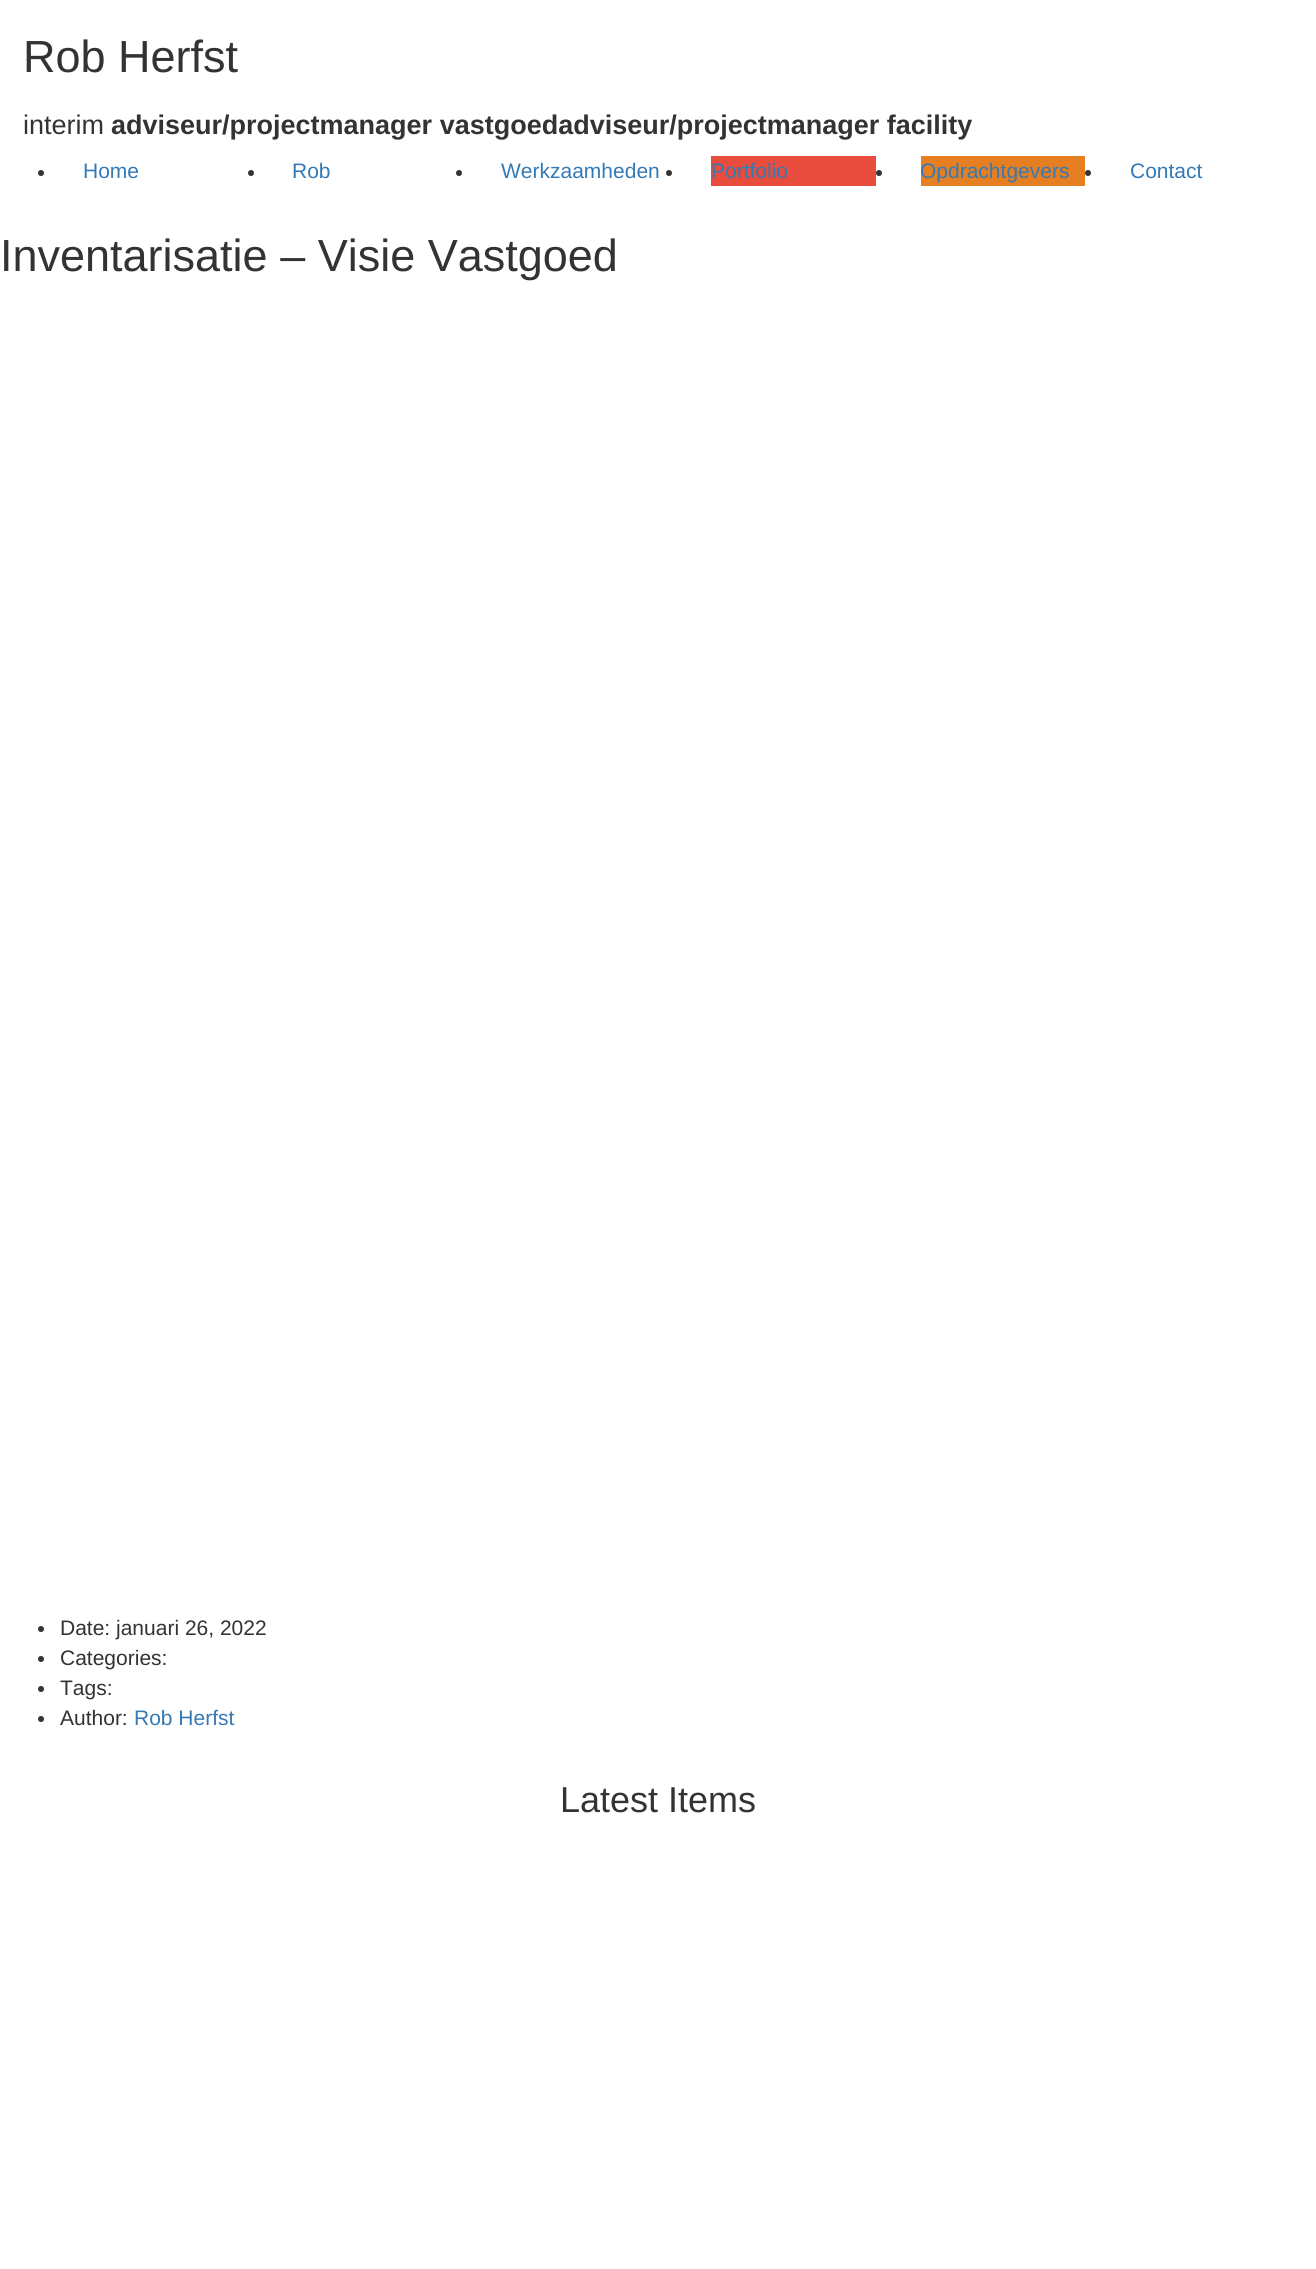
import math
import cairo

surface = cairo.ImageSurface(cairo.Format.RGB24, 1316, 2269)
ctx = cairo.Context(surface)
options = cairo.FontOptions()
options.set_hint_metrics(cairo.HintMetrics.OFF)
options.set_hint_style(cairo.HintStyle.NONE)
ctx.set_font_options(options)
ctx.set_miter_limit(4)


def ink(r, g, b):
    ctx.set_source_rgb(r / 255, g / 255, b / 255)


def write(x, y, s, family, size, color, bold=False, italic=False):
    ctx.select_font_face(family, cairo.FontSlant.ITALIC if italic else cairo.FontSlant.NORMAL, cairo.FontWeight.BOLD if bold else cairo.FontWeight.NORMAL)
    ctx.set_font_size(size)
    ink(*color)
    ctx.move_to(x, y)
    ctx.show_text(s)


def block(x, y, w, h, *color):
    ink(*color)
    ctx.rectangle(x, y, w, h)
    ctx.fill()


s1 = dict(family="Liberation Sans", size=45, color=(51, 51, 51))
s2 = dict(family="Liberation Sans", size=27, color=(51, 51, 51))
s3 = dict(family="Liberation Sans", size=27, color=(51, 51, 51), bold=True)
s4 = dict(family="Liberation Sans", size=21, color=(51, 122, 183))
s5 = dict(family="Liberation Sans", size=21, color=(51, 51, 51))
s6 = dict(family="Liberation Sans", size=36, color=(51, 51, 51))

ink(255, 255, 255)
ctx.paint()
write(23, 72, "Rob Herfst", **s1)
write(23, 134, "interim", **s2)
write(111, 134, "adviseur/projectmanager vastgoedadviseur/projectmanager facility", **s3)
ctx.new_path()
ctx.arc(41, 173, 3, 0, 2 * math.pi)
ctx.fill()
write(83, 178, "Home", **s4)
ink(51, 51, 51)
ctx.new_path()
ctx.arc(251, 173, 3, 0, 2 * math.pi)
ctx.fill()
write(292, 178, "Rob", **s4)
ink(51, 51, 51)
ctx.new_path()
ctx.arc(459, 173, 3, 0, 2 * math.pi)
ctx.fill()
write(501, 178, "Werkzaamheden", **s4)
ink(51, 51, 51)
ctx.new_path()
ctx.arc(669, 173, 3, 0, 2 * math.pi)
ctx.fill()
block(711, 156, 165, 30, 231, 76, 60)
write(711, 178, "Portfolio", **s4)
ink(51, 51, 51)
ctx.new_path()
ctx.arc(879, 173, 3, 0, 2 * math.pi)
ctx.fill()
block(921, 156, 164, 30, 230, 126, 34)
write(920, 178, "Opdrachtgevers", **s4)
ink(51, 51, 51)
ctx.new_path()
ctx.arc(1088, 173, 3, 0, 2 * math.pi)
ctx.fill()
write(1130, 178, "Contact", **s4)
write(0, 271, "Inventarisatie – Visie Vastgoed", **s1)
ctx.new_path()
ctx.arc(41, 1629, 3, 0, 2 * math.pi)
ctx.fill()
write(60, 1635, "Date: januari 26, 2022", **s5)
ctx.new_path()
ctx.arc(41, 1659, 3, 0, 2 * math.pi)
ctx.fill()
write(60, 1665, "Categories:", **s5)
ctx.new_path()
ctx.arc(41, 1689, 3, 0, 2 * math.pi)
ctx.fill()
write(60, 1695, "Tags:", **s5)
ctx.new_path()
ctx.arc(41, 1719, 3, 0, 2 * math.pi)
ctx.fill()
write(60, 1725, "Author:", **s5)
write(134, 1725, "Rob Herfst", **s4)
write(560, 1812, "Latest Items", **s6)
surface.write_to_png("screenshot.png")
